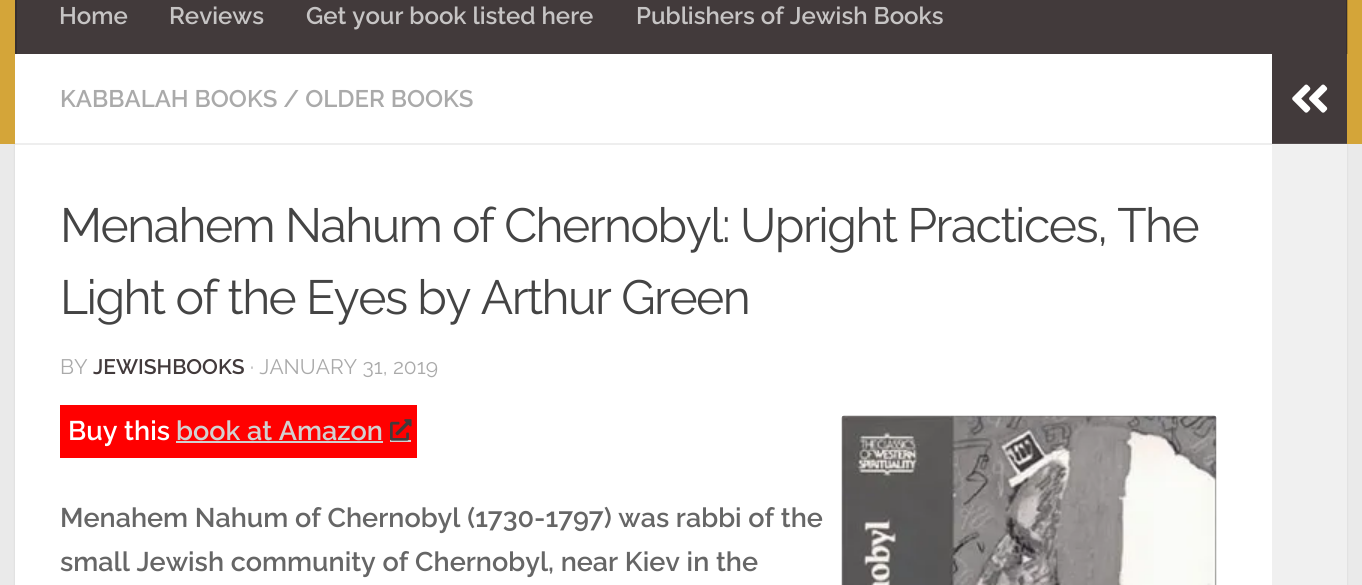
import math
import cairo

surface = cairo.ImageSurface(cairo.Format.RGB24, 1362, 585)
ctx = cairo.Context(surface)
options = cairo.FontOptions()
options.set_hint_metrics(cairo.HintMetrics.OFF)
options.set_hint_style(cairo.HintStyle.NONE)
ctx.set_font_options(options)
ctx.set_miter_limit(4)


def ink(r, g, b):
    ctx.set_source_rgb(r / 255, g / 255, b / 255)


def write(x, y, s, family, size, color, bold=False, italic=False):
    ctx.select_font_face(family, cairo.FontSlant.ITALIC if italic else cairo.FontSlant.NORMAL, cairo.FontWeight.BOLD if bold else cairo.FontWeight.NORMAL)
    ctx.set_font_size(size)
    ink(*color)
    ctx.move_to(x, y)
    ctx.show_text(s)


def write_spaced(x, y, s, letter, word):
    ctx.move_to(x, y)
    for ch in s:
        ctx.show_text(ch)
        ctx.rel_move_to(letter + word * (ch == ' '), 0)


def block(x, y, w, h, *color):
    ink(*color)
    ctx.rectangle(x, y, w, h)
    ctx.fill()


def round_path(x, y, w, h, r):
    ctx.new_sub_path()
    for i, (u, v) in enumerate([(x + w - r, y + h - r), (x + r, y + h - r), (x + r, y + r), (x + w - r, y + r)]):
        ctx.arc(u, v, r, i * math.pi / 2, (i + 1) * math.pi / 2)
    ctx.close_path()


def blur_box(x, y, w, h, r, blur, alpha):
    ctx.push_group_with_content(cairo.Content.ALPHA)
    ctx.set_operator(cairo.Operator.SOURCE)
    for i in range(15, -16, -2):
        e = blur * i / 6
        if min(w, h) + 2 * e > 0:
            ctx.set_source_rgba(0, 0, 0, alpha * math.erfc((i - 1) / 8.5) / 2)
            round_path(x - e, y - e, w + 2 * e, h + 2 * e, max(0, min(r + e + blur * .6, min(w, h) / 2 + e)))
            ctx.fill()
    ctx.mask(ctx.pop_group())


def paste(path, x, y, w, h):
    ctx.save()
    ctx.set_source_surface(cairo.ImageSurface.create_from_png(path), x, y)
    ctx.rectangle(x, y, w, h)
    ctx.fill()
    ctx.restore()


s1 = dict(family="Raleway SemiBold", size=24, color=(198, 196, 196))
s2 = dict(family="Raleway SemiBold", size=24, color=(170, 170, 170))
s3 = dict(family="Raleway", size=21, color=(170, 170, 170))
s4 = dict(family="Raleway SemiBold", size=21, color=(66, 58, 59))
s5 = dict(family="Raleway SemiBold", size=27, color=(255, 255, 255))
s6 = dict(family="Raleway SemiBold", size=27, color=(210, 208, 208))
s7 = dict(family="Raleway SemiBold", size=27, color=(102, 102, 102))

ink(234, 234, 234)
ctx.paint()
ink(0, 0, 0)
blur_box(15, 56, 1332, 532, 0, 1, 0.1)
block(0, 0, 1362, 144, 212, 165, 57)
block(1347, 0, 1, 54, 170, 132, 46)
block(17, 0, 1329, 54, 66, 58, 59)
block(1346, 0, 1, 54, 53, 46, 47)
block(15, 0, 2, 54, 53, 46, 47)
write(59, 24, "Home", **s1)
write(169, 24, "Reviews", **s1)
write(306, 24, "Get your book listed here", **s1)
write(636, 24, "Publishers of Jewish Books", **s1)
block(15, 54, 1257, 531, 255, 255, 255)
block(15, 143, 1257, 2, 238, 238, 238)
write(60, 107, "KABBALAH BOOKS / OLDER BOOKS", **s2)
ctx.select_font_face("Raleway")
ctx.set_font_size(48)
ink(68, 68, 68)
write_spaced(60, 242, "Menahem Nahum of Chernobyl: Upright Practices, The", -1.5, 0)
write_spaced(60, 314, "Light of the Eyes by Arthur Green", -1.5, 0)
write(60, 374, "BY", **s3)
write(93, 374, "JEWISHBOOKS", **s4)
write(250, 374, "· JANUARY 31, 2019", **s3)
block(60, 405, 357, 53, 255, 0, 0)
write(68, 440, "Buy this", **s5)
write(176, 440, "book at Amazon", **s6)
block(176, 441, 207, 2, 210, 208, 208)
block(390, 440, 21, 2, 210, 208, 208)
paste("pic1.png", 390, 419, 22, 22)
paste("pic2.png", 841, 415, 376, 170)
write(60, 527, "Menahem Nahum of Chernobyl (1730-1797) was rabbi of the", **s7)
write(60, 571, "small Jewish community of Chernobyl, near Kiev in the", **s7)
block(1272, 54, 75, 89, 66, 58, 59)
block(1272, 143, 75, 1, 85, 78, 79)
paste("pic3.png", 1292, 84, 36, 29)
block(1272, 145, 75, 440, 240, 240, 240)
block(1272, 144, 75, 1, 242, 242, 242)
surface.write_to_png("screenshot.png")
